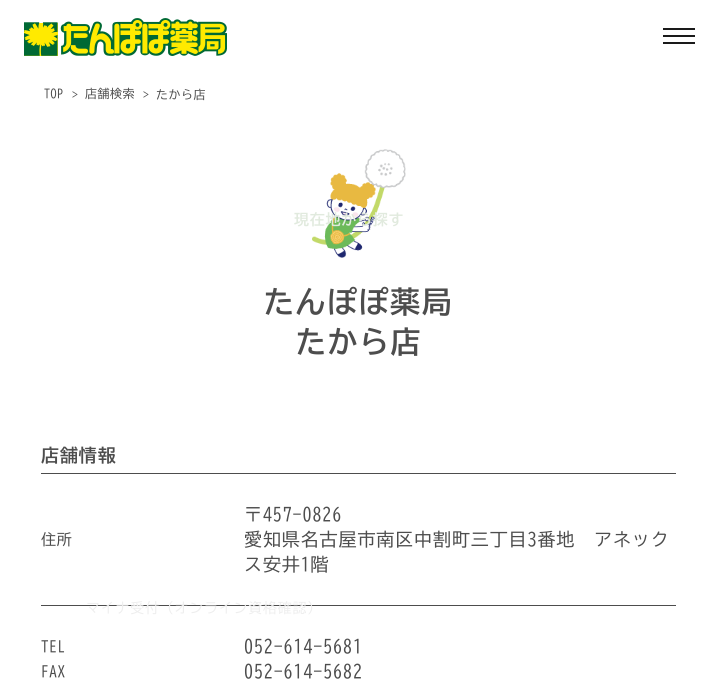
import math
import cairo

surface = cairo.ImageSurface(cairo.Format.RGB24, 717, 681)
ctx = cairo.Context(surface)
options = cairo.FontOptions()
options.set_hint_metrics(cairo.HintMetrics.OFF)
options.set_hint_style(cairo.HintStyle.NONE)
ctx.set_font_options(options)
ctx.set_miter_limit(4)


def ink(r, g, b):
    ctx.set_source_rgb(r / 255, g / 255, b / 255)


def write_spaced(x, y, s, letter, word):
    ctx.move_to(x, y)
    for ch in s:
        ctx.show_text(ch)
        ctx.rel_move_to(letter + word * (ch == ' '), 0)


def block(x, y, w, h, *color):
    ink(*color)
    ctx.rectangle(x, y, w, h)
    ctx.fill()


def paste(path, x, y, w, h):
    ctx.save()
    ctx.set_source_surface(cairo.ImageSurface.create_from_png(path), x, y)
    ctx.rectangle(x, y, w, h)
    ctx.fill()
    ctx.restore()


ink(255, 255, 255)
ctx.paint()
paste("pic1.png", 24, 18, 203, 38)
block(663, 28, 32, 2, 26, 26, 26)
block(663, 35, 32, 2, 26, 26, 26)
block(663, 42, 32, 2, 26, 26, 26)
ctx.select_font_face("BIZ UDGothic")
ctx.set_font_size(12)
ink(77, 77, 77)
write_spaced(44, 98, "TOP", 0.5, 0)
write_spaced(72, 99, ">", 0.5, 0)
write_spaced(85, 98, "店舗検索", 0.5, 0)
write_spaced(143, 99, "> たから店", 0.5, 0)
paste("pic2.png", 312, 149, 94, 109)
ctx.select_font_face("BIZ UDGothic", cairo.FontSlant.NORMAL, cairo.FontWeight.BOLD)
ctx.set_font_size(30)
write_spaced(264, 313, "たんぽぽ薬局", 1.5, 0)
write_spaced(296, 353, "たから店", 1.5, 0)
ctx.set_font_size(18)
write_spaced(41, 462, "店舗情報", 0.9, 0)
block(41, 473, 635, 1, 77, 77, 77)
ctx.select_font_face("BIZ UDGothic")
ctx.set_font_size(15)
write_spaced(41, 545, "住所", 0.75, 0)
ctx.set_font_size(18)
write_spaced(244, 521, "〒457-0826", 0.9, 0)
write_spaced(244, 546, "愛知県名古屋市南区中割町三丁目3番地　アネック", 0.9, 0)
write_spaced(244, 571, "ス安井1階", 0.9, 0)
block(41, 605, 635, 1, 77, 77, 77)
ctx.set_font_size(15)
write_spaced(41, 652, "TEL", 0.75, 0)
write_spaced(41, 677, "FAX", 0.75, 0)
ctx.set_font_size(18)
write_spaced(244, 653, "052-614-5681", 0.9, 0)
write_spaced(244, 678, "052-614-5682", 0.9, 0)
ctx.select_font_face("BIZ UDGothic", cairo.FontSlant.NORMAL, cairo.FontWeight.BOLD)
ctx.set_font_size(15)
ink(225, 234, 222)
write_spaced(294, 225, "現在地から探す", 0.75, 0)
ctx.select_font_face("BIZ UDGothic")
ctx.set_font_size(14)
ink(238, 238, 238)
write_spaced(86, 613, "マイナ受付（オンライン資格確認）", 0.75, 0)
surface.write_to_png("screenshot.png")
